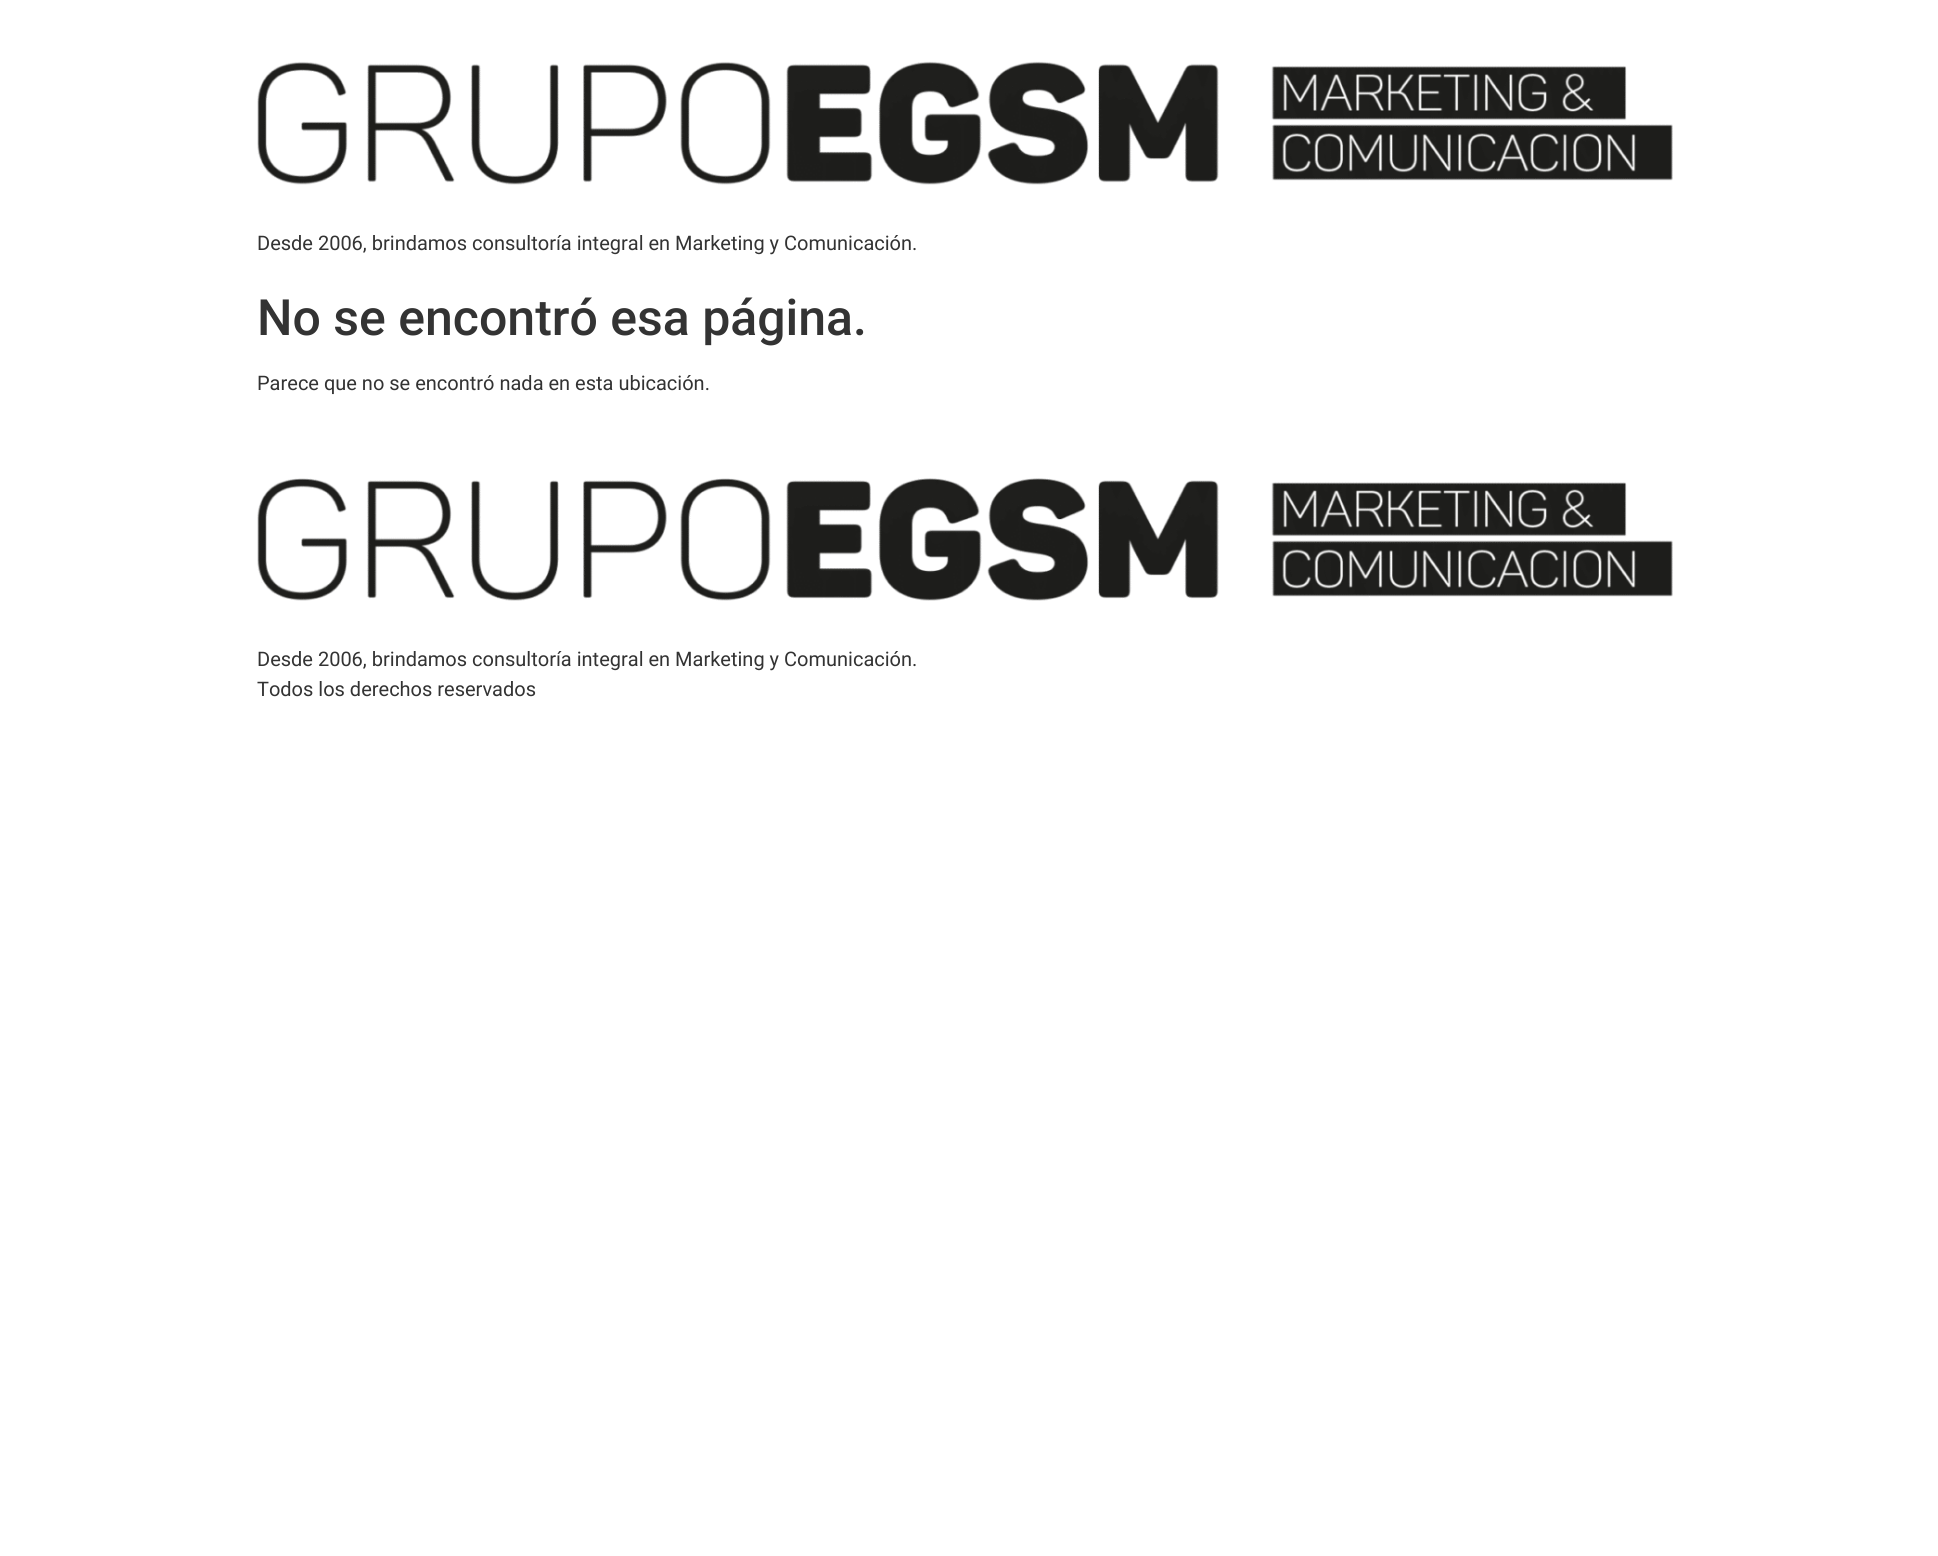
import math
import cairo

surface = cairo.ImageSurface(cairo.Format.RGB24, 1938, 1556)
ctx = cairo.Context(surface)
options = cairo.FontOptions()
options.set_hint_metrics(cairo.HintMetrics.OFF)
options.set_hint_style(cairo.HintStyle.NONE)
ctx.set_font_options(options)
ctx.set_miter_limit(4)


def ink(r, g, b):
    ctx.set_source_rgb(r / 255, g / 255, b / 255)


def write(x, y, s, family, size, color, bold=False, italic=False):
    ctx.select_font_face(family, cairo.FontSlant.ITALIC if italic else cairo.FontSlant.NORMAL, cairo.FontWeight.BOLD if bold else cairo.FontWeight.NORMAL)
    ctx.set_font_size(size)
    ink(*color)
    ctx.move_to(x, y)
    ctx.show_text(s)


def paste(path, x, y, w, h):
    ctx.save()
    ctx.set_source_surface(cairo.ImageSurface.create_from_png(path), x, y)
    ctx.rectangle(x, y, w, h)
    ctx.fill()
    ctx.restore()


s1 = dict(family="Roboto", size=20, color=(51, 51, 51))
s2 = dict(family="Roboto Medium", size=50, color=(51, 51, 51))

ink(255, 255, 255)
ctx.paint()
paste("pic1.png", 257, 61, 1416, 124)
write(257, 250, "Desde 2006, brindamos consultoría integral en Marketing y Comunicación.", **s1)
write(257, 335, "No se encontró esa página.", **s2)
write(257, 390, "Parece que no se encontró nada en esta ubicación.", **s1)
paste("pic2.png", 257, 478, 1416, 123)
write(257, 666, "Desde 2006, brindamos consultoría integral en Marketing y Comunicación.", **s1)
write(257, 696, "Todos los derechos reservados", **s1)
surface.write_to_png("screenshot.png")
